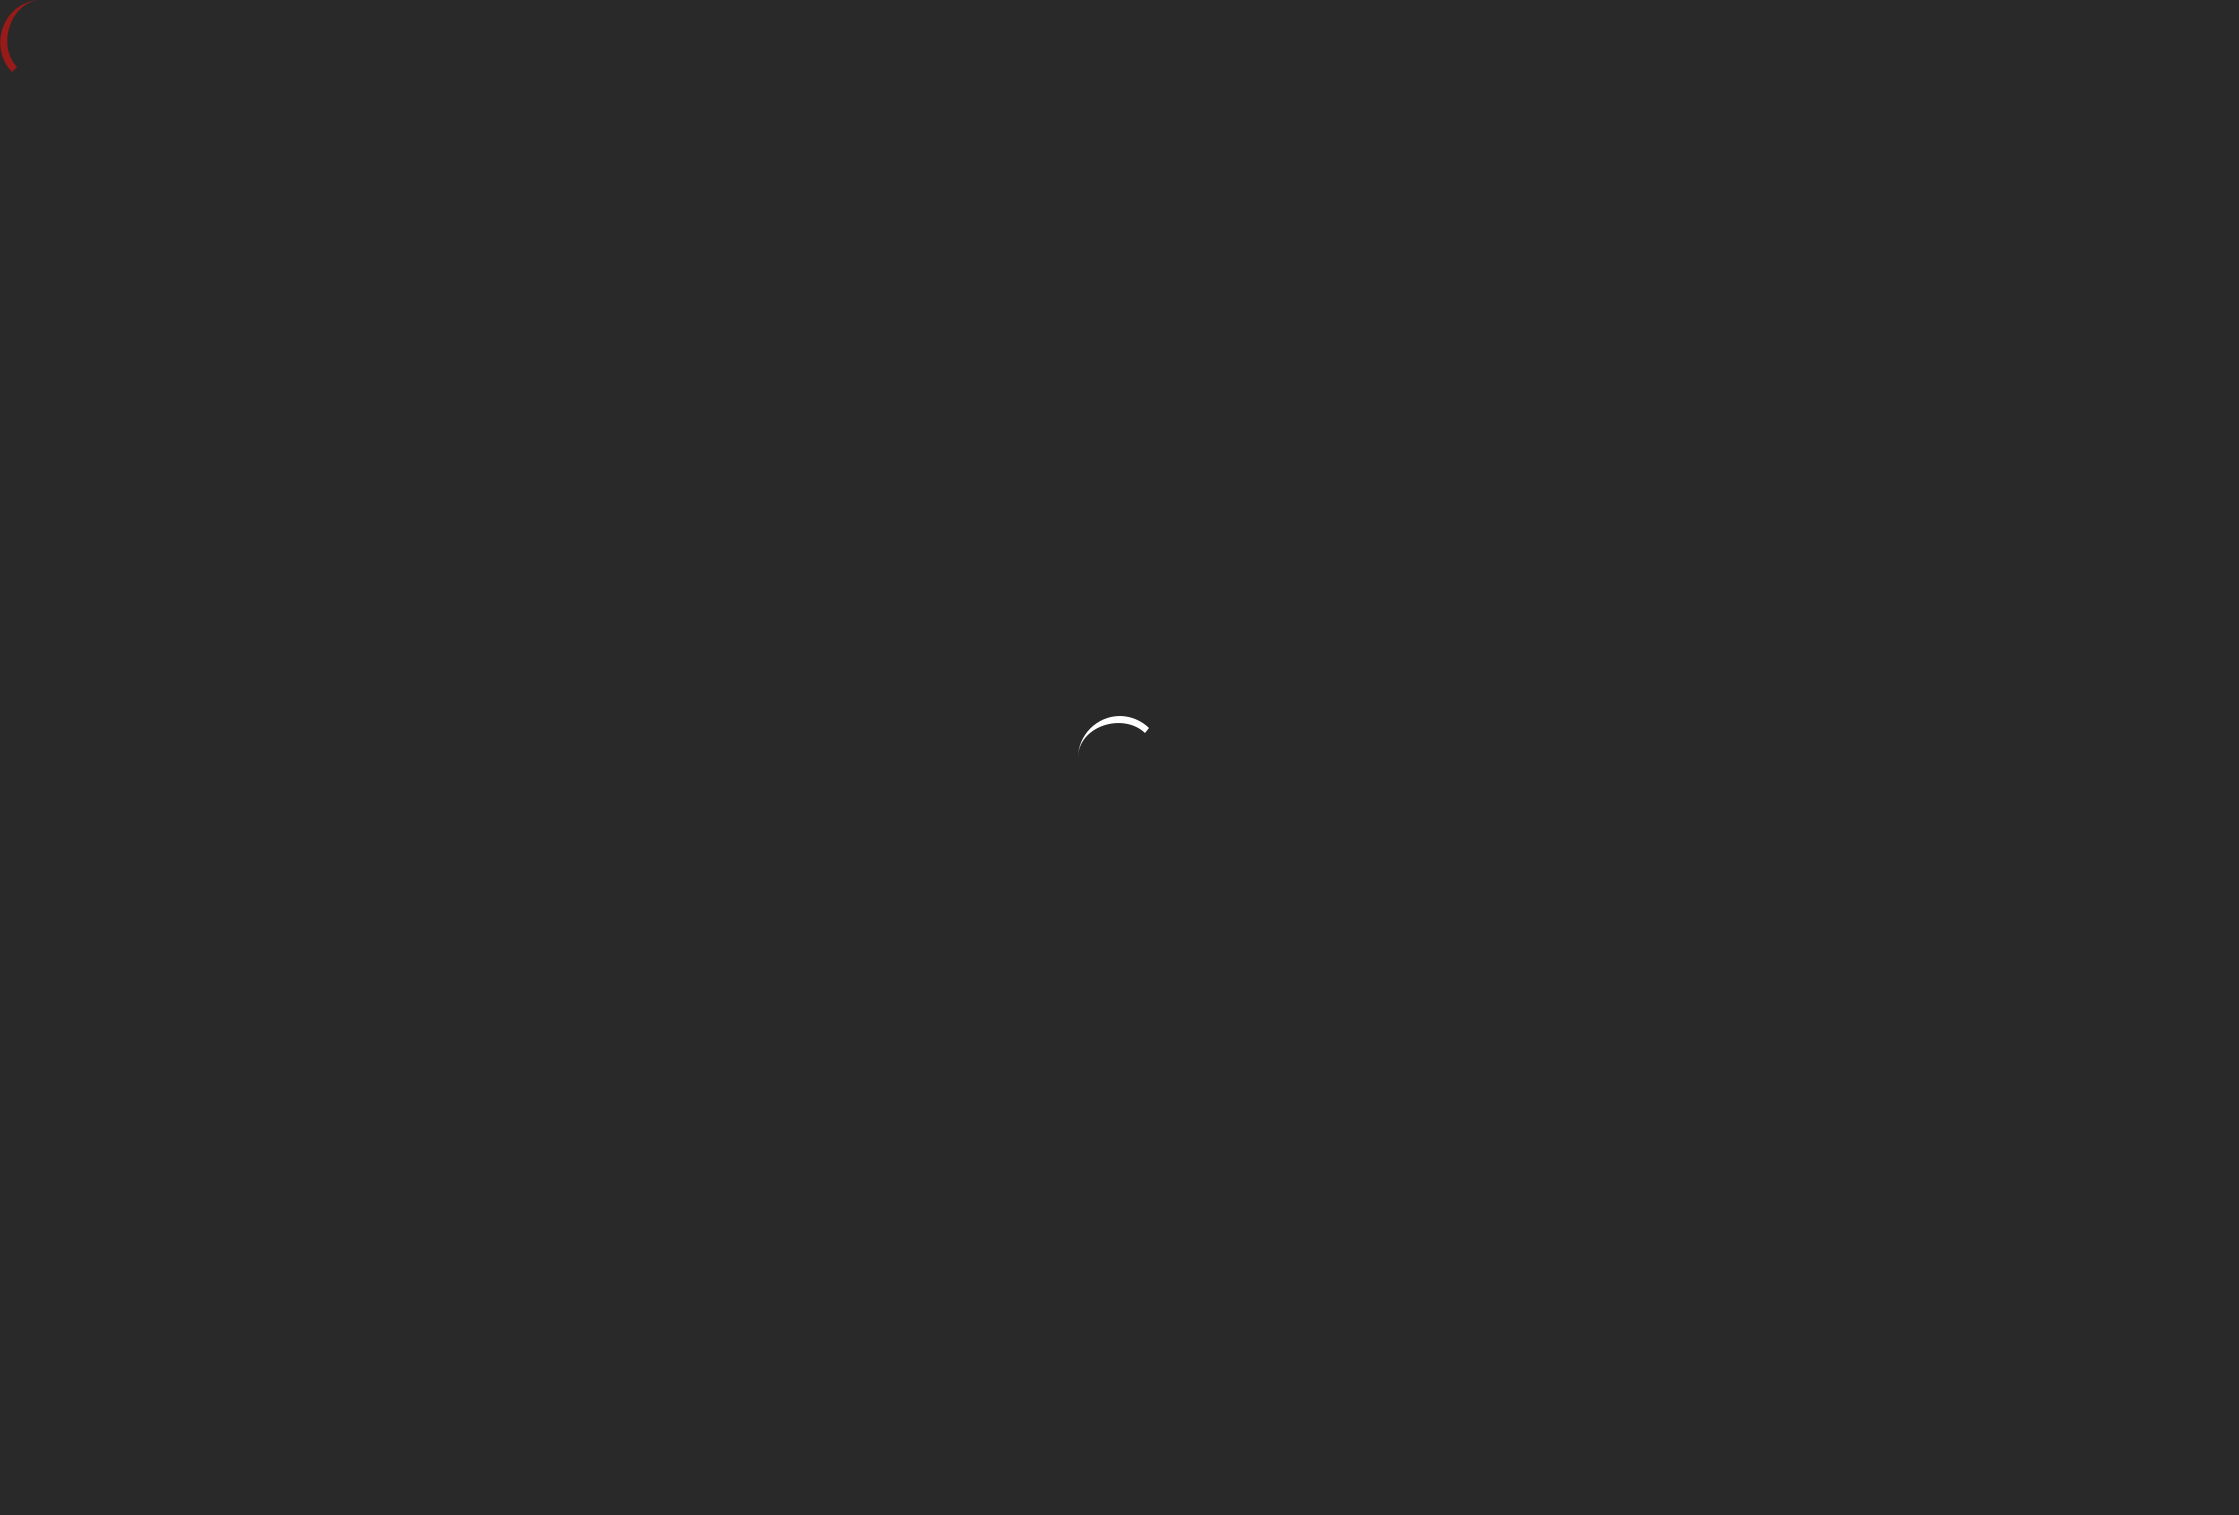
import math
import cairo

surface = cairo.ImageSurface(cairo.Format.RGB24, 2239, 1515)
ctx = cairo.Context(surface)
options = cairo.FontOptions()
options.set_hint_metrics(cairo.HintMetrics.OFF)
options.set_hint_style(cairo.HintStyle.NONE)
ctx.set_font_options(options)
ctx.set_miter_limit(4)


def ink(r, g, b):
    ctx.set_source_rgb(r / 255, g / 255, b / 255)


ink(41, 41, 41)
ctx.paint()
ink(255, 255, 255)
ctx.new_path()
ctx.move_to(1120, 716)
ctx.curve_to(1131, 716, 1142, 721, 1149, 728)
ctx.line_to(1145, 733)
ctx.curve_to(1123, 712, 1078, 726, 1078, 758)
ctx.curve_to(1078, 735, 1097, 716, 1120, 716)
ctx.close_path()
ctx.fill()
ink(152, 26, 25)
ctx.new_path()
ctx.move_to(42, 0)
ctx.curve_to(11, 0, -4, 45, 17, 67)
ctx.line_to(12, 72)
ctx.curve_to(-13, 46, 4, 0, 42, 0)
ctx.close_path()
ctx.fill()
surface.write_to_png("screenshot.png")
